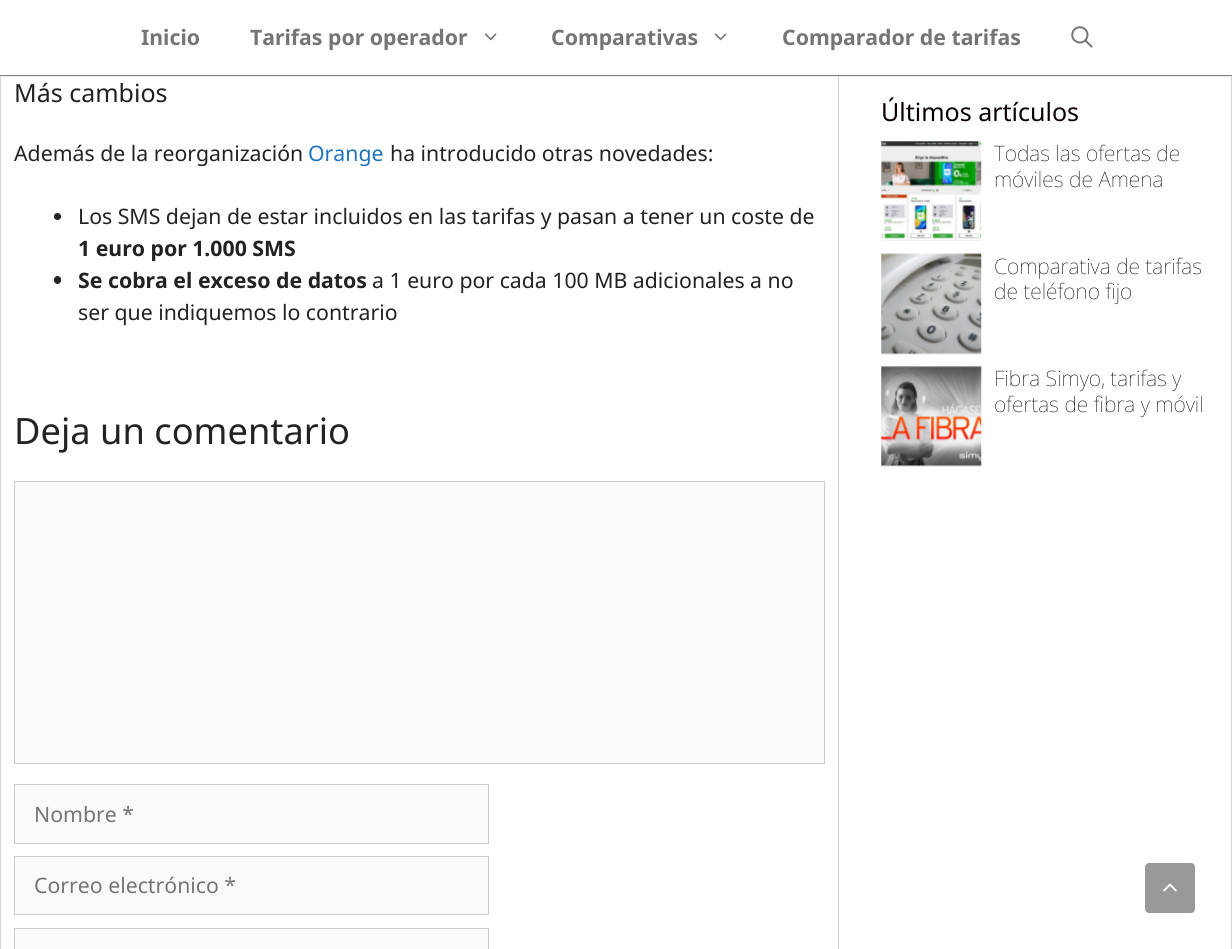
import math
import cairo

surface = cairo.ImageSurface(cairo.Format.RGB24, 1232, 949)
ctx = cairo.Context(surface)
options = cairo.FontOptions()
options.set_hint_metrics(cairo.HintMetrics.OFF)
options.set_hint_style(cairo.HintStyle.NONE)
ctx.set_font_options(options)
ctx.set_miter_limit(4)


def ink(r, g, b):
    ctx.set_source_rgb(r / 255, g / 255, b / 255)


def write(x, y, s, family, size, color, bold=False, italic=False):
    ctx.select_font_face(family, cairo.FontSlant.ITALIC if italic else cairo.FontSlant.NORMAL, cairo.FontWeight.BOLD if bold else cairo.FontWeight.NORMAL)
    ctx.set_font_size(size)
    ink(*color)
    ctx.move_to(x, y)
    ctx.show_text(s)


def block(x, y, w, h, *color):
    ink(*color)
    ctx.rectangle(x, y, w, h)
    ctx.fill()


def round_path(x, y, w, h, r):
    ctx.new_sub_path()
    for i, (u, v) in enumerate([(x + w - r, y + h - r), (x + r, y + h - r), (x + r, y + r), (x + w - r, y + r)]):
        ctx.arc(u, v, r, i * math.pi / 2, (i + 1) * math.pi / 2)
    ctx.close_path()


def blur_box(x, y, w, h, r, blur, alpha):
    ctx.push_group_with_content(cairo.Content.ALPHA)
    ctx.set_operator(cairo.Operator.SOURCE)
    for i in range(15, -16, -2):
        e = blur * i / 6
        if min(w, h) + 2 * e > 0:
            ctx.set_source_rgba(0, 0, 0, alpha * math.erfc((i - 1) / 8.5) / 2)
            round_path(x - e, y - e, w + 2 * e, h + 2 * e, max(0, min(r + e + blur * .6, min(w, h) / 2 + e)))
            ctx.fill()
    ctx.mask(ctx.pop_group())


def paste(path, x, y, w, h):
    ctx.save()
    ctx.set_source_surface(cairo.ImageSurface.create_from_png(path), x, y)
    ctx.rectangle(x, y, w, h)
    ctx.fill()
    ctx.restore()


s1 = dict(family="Noto Sans", size=21.25, color=(117, 117, 117), bold=True)
s2 = dict(family="Noto Sans", size=25, color=(34, 34, 34))
s3 = dict(family="Noto Sans", size=21.25, color=(34, 34, 34))
s4 = dict(family="Noto Sans", size=21.25, color=(30, 115, 190))
s5 = dict(family="Noto Sans", size=21.25, color=(34, 34, 34), bold=True)
s6 = dict(family="Noto Sans", size=36.25, color=(34, 34, 34))
s7 = dict(family="Noto Sans", size=21.25, color=(117, 117, 117))
s8 = dict(family="Noto Sans", size=25, color=(10, 0, 2))
s9 = dict(family="Noto Sans Thin", size=21.25, color=(0, 0, 0))

ink(255, 255, 255)
ctx.paint()
block(838, 76, 1, 873, 211, 211, 211)
block(0, 76, 1, 873, 211, 211, 211)
block(1231, 76, 1, 873, 211, 211, 211)
ink(0, 0, 0)
blur_box(3, 5, 1227, 71, 0, 1, 0.2)
block(1, 3, 1231, 72, 255, 255, 255)
block(0, 75, 1232, 1, 128, 128, 128)
write(141, 45, "Inicio", **s1)
write(250, 45, "Tarifas por operador", **s1)
paste("pic1.png", 484, 33, 13, 8)
write(551, 45, "Comparativas", **s1)
paste("pic1.png", 714, 33, 13, 8)
write(782, 45, "Comparador de tarifas", **s1)
paste("pic2.png", 1071, 26, 22, 22)
write(14, 102, "Más cambios", **s2)
write(14, 161, "Además de la reorganización", **s3)
write(308, 161, "Orange", **s4)
write(390, 161, "ha introducido otras novedades:", **s3)
ctx.new_path()
ctx.arc(57.5, 216.5, 3.5, 0, 2 * math.pi)
ctx.fill()
write(78, 224, "Los SMS dejan de estar incluidos en las tarifas y pasan a tener un coste de", **s3)
write(78, 256, "1 euro por 1.000 SMS", **s5)
round_path(54, 276, 7, 8, 3.5)
ctx.fill()
write(78, 288, "Se cobra el exceso de datos", **s5)
write(372, 288, "a 1 euro por cada 100 MB adicionales a no", **s3)
write(78, 320, "ser que indiquemos lo contrario", **s3)
write(14, 444, "Deja un comentario", **s6)
ink(250, 250, 250)
ctx.rectangle(14.5, 481.5, 810, 282)
ctx.fill_preserve()
ink(204, 204, 204)
ctx.set_line_width(1)
ctx.stroke()
ink(250, 250, 250)
ctx.rectangle(14.5, 784.5, 474, 59)
ctx.fill_preserve()
ink(204, 204, 204)
ctx.stroke()
write(34, 822, "Nombre *", **s7)
ink(250, 250, 250)
ctx.rectangle(14.5, 856.5, 474, 58)
ctx.fill_preserve()
ink(204, 204, 204)
ctx.stroke()
write(34, 893, "Correo electrónico *", **s7)
ink(250, 250, 250)
ctx.rectangle(14.5, 928.5, 474, 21)
ctx.fill_preserve()
ink(204, 204, 204)
ctx.stroke()
write(881, 121, "Últimos artículos", **s8)
paste("pic3.png", 881, 141, 101, 100)
write(994, 161, "Todas las ofertas de", **s9)
write(994, 187, "móviles de Amena", **s9)
paste("pic4.png", 881, 253, 101, 102)
write(994, 274, "Comparativa de tarifas", **s9)
write(994, 299, "de teléfono fijo", **s9)
paste("pic5.png", 881, 366, 101, 101)
write(994, 386, "Fibra Simyo, tarifas y", **s9)
write(994, 412, "ofertas de fibra y móvil", **s9)
ink(153, 153, 153)
round_path(1145, 863, 50, 50, 4)
ctx.fill()
paste("pic6.png", 1163, 883, 14, 9)
surface.write_to_png("screenshot.png")
